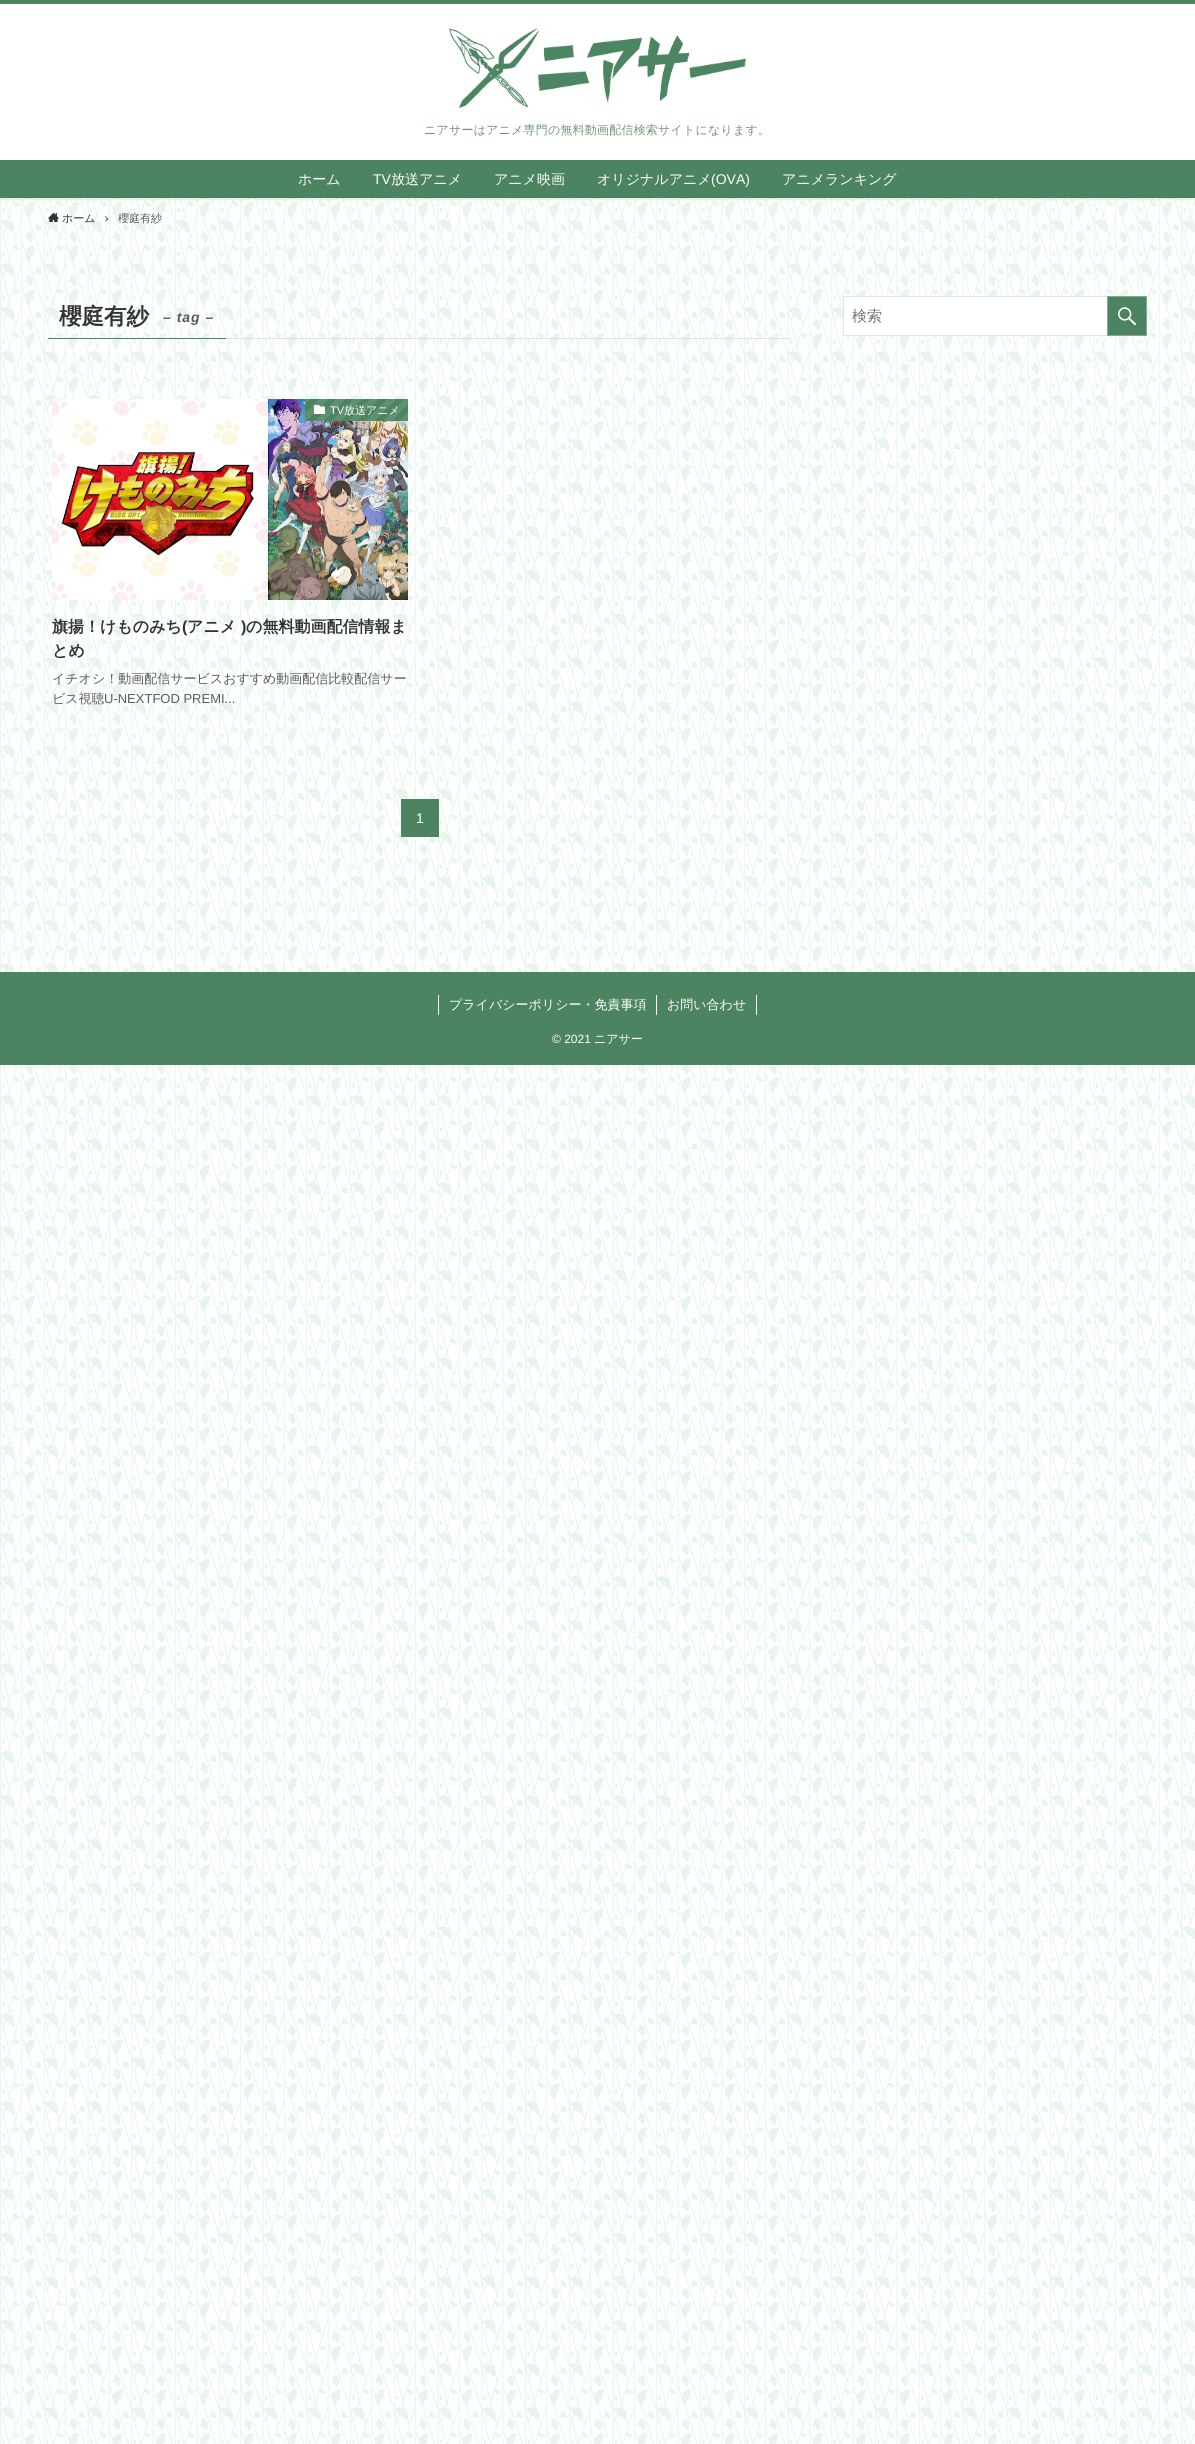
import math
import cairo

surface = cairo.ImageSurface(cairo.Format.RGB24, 1195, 2444)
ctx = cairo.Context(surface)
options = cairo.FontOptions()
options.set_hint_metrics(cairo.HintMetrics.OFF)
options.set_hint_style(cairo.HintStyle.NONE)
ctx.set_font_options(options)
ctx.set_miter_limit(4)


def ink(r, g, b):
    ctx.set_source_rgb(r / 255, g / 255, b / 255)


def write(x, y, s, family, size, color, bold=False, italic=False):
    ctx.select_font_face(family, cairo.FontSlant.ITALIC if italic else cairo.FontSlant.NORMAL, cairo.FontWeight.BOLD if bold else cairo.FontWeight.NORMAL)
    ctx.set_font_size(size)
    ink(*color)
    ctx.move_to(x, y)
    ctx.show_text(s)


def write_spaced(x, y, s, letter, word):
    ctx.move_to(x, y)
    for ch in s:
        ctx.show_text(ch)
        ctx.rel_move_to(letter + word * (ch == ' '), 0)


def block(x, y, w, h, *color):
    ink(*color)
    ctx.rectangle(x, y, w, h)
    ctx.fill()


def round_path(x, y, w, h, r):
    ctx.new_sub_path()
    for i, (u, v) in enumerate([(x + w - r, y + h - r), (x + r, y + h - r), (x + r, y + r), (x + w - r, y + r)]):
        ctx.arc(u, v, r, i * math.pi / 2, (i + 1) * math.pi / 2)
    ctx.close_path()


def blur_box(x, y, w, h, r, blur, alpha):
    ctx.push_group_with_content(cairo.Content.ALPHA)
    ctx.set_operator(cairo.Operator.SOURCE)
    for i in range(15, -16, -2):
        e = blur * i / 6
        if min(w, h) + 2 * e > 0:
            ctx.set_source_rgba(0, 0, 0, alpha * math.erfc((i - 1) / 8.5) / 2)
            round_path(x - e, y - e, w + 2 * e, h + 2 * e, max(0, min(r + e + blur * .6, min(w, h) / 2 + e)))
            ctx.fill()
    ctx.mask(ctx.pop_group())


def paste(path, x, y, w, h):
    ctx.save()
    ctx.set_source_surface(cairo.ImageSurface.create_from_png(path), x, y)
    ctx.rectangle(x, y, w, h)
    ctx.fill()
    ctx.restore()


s1 = dict(family="WenQuanYi Zen Hei Medium", size=14, color=(255, 255, 255))
s2 = dict(family="Liberation Sans", size=14, color=(255, 255, 255))
s3 = dict(family="WenQuanYi Zen Hei Medium", size=11, color=(51, 51, 51))
s4 = dict(family="WenQuanYi Zen Hei Medium", size=11, color=(90, 91, 91))
s5 = dict(family="WenQuanYi Zen Hei", size=22.5, color=(51, 51, 51), bold=True)
s6 = dict(family="Liberation Sans", size=11, color=(255, 255, 255))
s7 = dict(family="WenQuanYi Zen Hei Medium", size=11, color=(255, 255, 255))
s8 = dict(family="WenQuanYi Zen Hei", size=16, color=(51, 51, 51), bold=True)
s9 = dict(family="Liberation Sans", size=16, color=(51, 51, 51), bold=True)
s10 = dict(family="WenQuanYi Zen Hei Medium", size=13, color=(90, 91, 91))
s11 = dict(family="Liberation Sans", size=13, color=(90, 91, 91))
s12 = dict(family="WenQuanYi Zen Hei Medium", size=15, color=(117, 117, 117))
s13 = dict(family="WenQuanYi Zen Hei Medium", size=13, color=(255, 255, 255))
s14 = dict(family="Liberation Sans", size=12, color=(255, 255, 255))
s15 = dict(family="WenQuanYi Zen Hei Medium", size=12, color=(255, 255, 255))

ink(252, 255, 254)
ctx.paint()
paste("pic2.png", 0, 198, 1195, 2246)
ink(0, 0, 0)
blur_box(0, 1, 1195, 198, 0, 2, 0.12)
block(0, 4, 1195, 156, 255, 255, 255)
block(0, 0, 1195, 4, 76, 132, 98)
paste("pic1.png", 449, 28, 297, 80)
ctx.select_font_face("WenQuanYi Zen Hei Medium")
ctx.set_font_size(12)
ink(117, 150, 121)
write_spaced(424, 134, "ニアサーはアニメ専門の無料動画配信検索サイトになります。", 0.2, 0)
block(0, 160, 1195, 38, 76, 132, 98)
write(298, 184, "ホーム", **s1)
write(373, 184, "TV", **s2)
write(391, 184, "放送アニメ", **s1)
write(494, 184, "アニメ映画", **s1)
write(597, 184, "オリジナルアニメ", **s1)
write(711, 184, "(OVA)", **s2)
write(782, 184, "アニメランキング", **s1)
paste("pic3.png", 48, 212, 11, 10)
write(62, 222, "ホーム", **s3)
ink(91, 92, 92)
ctx.new_path()
ctx.move_to(105.5, 216)
ctx.line_to(108.5, 219)
ctx.line_to(107.5, 219.5)
ctx.line_to(105, 216.5)
ctx.close_path()
ctx.fill()
ctx.new_path()
ctx.move_to(107.5, 218)
ctx.line_to(108.5, 219)
ctx.line_to(105.5, 221.5)
ctx.line_to(105, 221)
ctx.close_path()
ctx.fill()
write(118, 222, "櫻庭有紗", **s4)
ctx.set_source_rgba(0.784, 0.784, 0.784, 0.5)
ctx.rectangle(226, 338, 565, 1)
ctx.fill()
block(48, 338, 178, 1, 76, 132, 98)
write(59, 324, "櫻庭有紗", **s5)
ctx.select_font_face("Liberation Sans", cairo.FontSlant.ITALIC, cairo.FontWeight.BOLD)
ctx.set_font_size(14)
ink(90, 91, 91)
write_spaced(163, 322, "– tag –", 1, 0)
paste("pic4.png", 52, 399, 356, 201)
gradient = cairo.LinearGradient(388, 441, 320, 373)
gradient.add_color_stop_rgba(0, 0.369, 0.565, 0.447, 1)
gradient.add_color_stop_rgba(0.06, 0.369, 0.565, 0.447, 1)
gradient.add_color_stop_rgba(0.06, 0.298, 0.518, 0.384, 1)
gradient.add_color_stop_rgba(0.12, 0.298, 0.518, 0.384, 1)
gradient.add_color_stop_rgba(0.12, 0.369, 0.565, 0.447, 1)
gradient.add_color_stop_rgba(0.19, 0.369, 0.565, 0.447, 1)
gradient.add_color_stop_rgba(0.19, 0.298, 0.518, 0.384, 1)
gradient.add_color_stop_rgba(0.25, 0.298, 0.518, 0.384, 1)
gradient.add_color_stop_rgba(0.25, 0.369, 0.565, 0.447, 1)
gradient.add_color_stop_rgba(0.31, 0.369, 0.565, 0.447, 1)
gradient.add_color_stop_rgba(0.31, 0.298, 0.518, 0.384, 1)
gradient.add_color_stop_rgba(0.38, 0.298, 0.518, 0.384, 1)
gradient.add_color_stop_rgba(0.38, 0.369, 0.565, 0.447, 1)
gradient.add_color_stop_rgba(0.44, 0.369, 0.565, 0.447, 1)
gradient.add_color_stop_rgba(0.44, 0.298, 0.518, 0.384, 1)
gradient.add_color_stop_rgba(0.5, 0.298, 0.518, 0.384, 1)
gradient.add_color_stop_rgba(0.5, 0.369, 0.565, 0.447, 1)
gradient.add_color_stop_rgba(0.56, 0.369, 0.565, 0.447, 1)
gradient.add_color_stop_rgba(0.56, 0.298, 0.518, 0.384, 1)
gradient.add_color_stop_rgba(0.62, 0.298, 0.518, 0.384, 1)
gradient.add_color_stop_rgba(0.62, 0.369, 0.565, 0.447, 1)
gradient.add_color_stop_rgba(0.69, 0.369, 0.565, 0.447, 1)
gradient.add_color_stop_rgba(0.69, 0.298, 0.518, 0.384, 1)
gradient.add_color_stop_rgba(0.75, 0.298, 0.518, 0.384, 1)
gradient.add_color_stop_rgba(0.75, 0.369, 0.565, 0.447, 1)
gradient.add_color_stop_rgba(0.81, 0.369, 0.565, 0.447, 1)
gradient.add_color_stop_rgba(0.81, 0.298, 0.518, 0.384, 1)
gradient.add_color_stop_rgba(0.88, 0.298, 0.518, 0.384, 1)
gradient.add_color_stop_rgba(0.88, 0.369, 0.565, 0.447, 1)
gradient.add_color_stop_rgba(0.94, 0.369, 0.565, 0.447, 1)
gradient.add_color_stop_rgba(0.94, 0.298, 0.518, 0.384, 1)
gradient.add_color_stop_rgba(1, 0.298, 0.518, 0.384, 1)
ctx.set_source(gradient)
ctx.rectangle(305, 399, 103, 22)
ctx.fill()
paste("pic5.png", 314, 405, 11, 9)
write(330, 414, "TV", **s6)
write(344, 414, "放送アニメ", **s7)
write(52, 632, "旗揚！けものみち", **s8)
write(182, 632, "(", **s9)
write(187, 632, "アニメ", **s8)
write(241, 632, ")", **s9)
write(246, 632, "の無料動画配信情報ま", **s8)
write(52, 656, "とめ", **s8)
write(52, 683, "イチオシ！動画配信サービスおすすめ動画配信比較配信サー", **s10)
write(52, 703, "ビス視聴", **s10)
write(104, 703, "U-NEXTFOD PREMI...", **s11)
block(401, 799, 38, 38, 76, 132, 98)
write(416, 823, "1", **s2)
block(844, 297, 263, 38, 255, 255, 255)
ctx.rectangle(843.5, 296.5, 303, 39)
ink(228, 228, 228)
ctx.set_line_width(1)
ctx.stroke()
write(852, 321, "検索", **s12)
ink(76, 132, 98)
ctx.rectangle(1107.5, 296.5, 39, 39)
ctx.fill_preserve()
ink(138, 166, 149)
ctx.stroke()
paste("pic6.png", 1118, 307, 18, 19)
block(0, 972, 1195, 93, 76, 132, 98)
block(656, 995, 1, 20, 255, 255, 255)
block(438, 995, 1, 20, 255, 255, 255)
write(449, 1009, "プライバシーポリシー・免責事項", **s13)
block(756, 995, 1, 20, 255, 255, 255)
write(667, 1009, "お問い合わせ", **s13)
write(552, 1043, "© 2021", **s14)
write(594, 1043, "ニアサー", **s15)
surface.write_to_png("screenshot.png")
